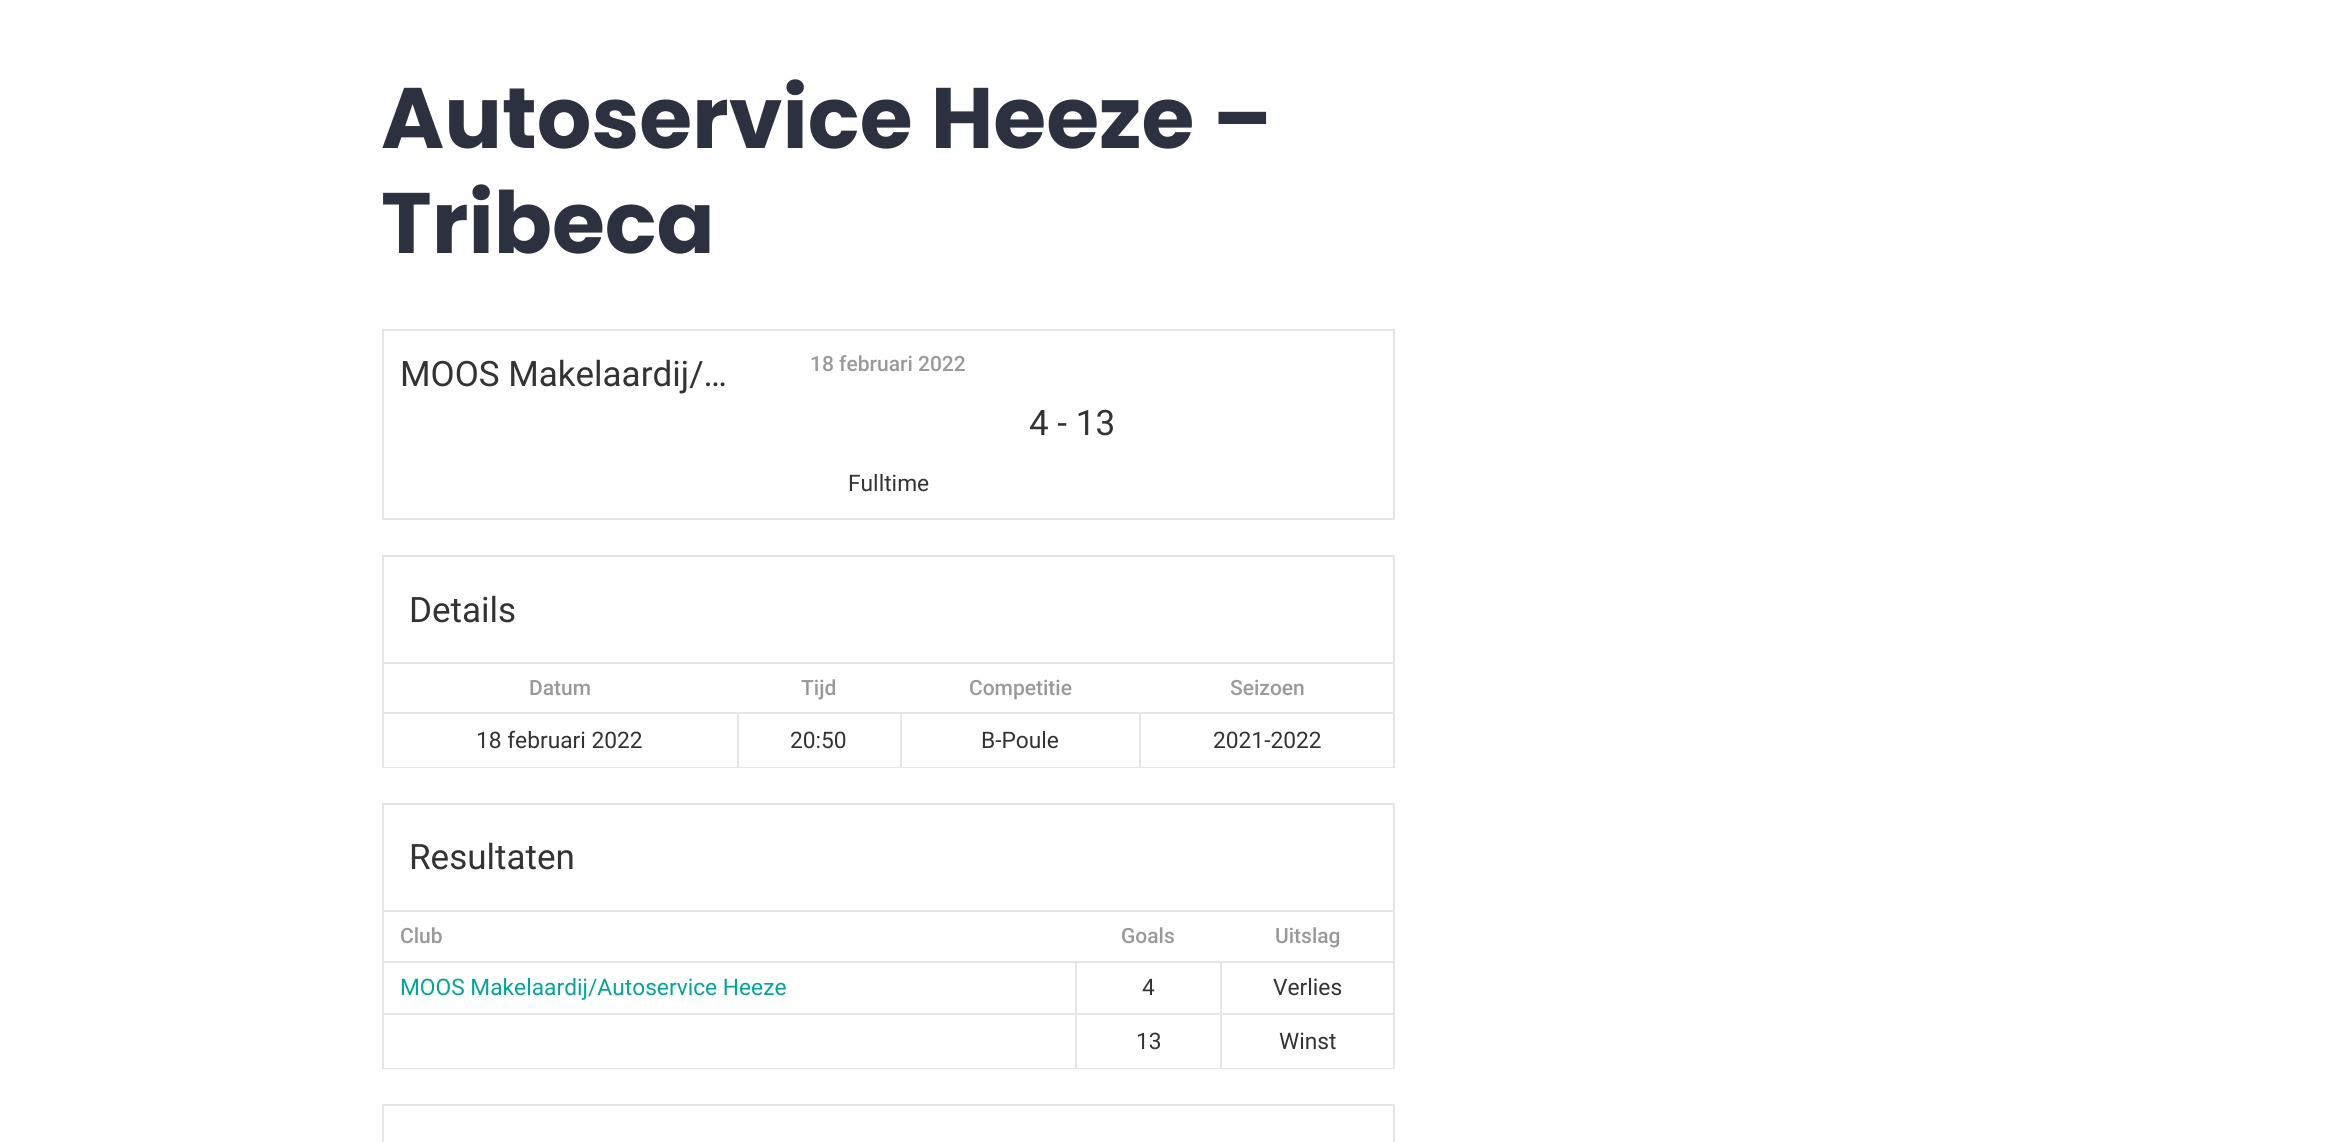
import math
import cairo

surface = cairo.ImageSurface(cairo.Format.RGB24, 2336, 1142)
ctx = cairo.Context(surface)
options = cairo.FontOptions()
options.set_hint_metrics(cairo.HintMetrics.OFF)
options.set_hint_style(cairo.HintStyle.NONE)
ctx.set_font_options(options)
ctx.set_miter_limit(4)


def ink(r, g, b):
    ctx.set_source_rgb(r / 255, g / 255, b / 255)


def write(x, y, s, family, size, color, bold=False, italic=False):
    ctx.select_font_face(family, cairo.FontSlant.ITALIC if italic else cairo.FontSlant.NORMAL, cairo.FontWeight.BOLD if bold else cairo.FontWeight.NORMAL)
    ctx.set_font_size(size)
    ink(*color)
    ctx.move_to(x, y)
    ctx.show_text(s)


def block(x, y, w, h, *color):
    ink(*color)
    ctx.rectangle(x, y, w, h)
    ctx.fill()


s1 = dict(family="Poppins", size=85.75, color=(44, 49, 63), bold=True)
s2 = dict(family="Roboto", size=35, color=(51, 51, 51))
s3 = dict(family="Roboto Medium", size=21, color=(153, 153, 153))
s4 = dict(family="Roboto", size=22.75, color=(51, 51, 51))
s5 = dict(family="Roboto", size=22.75, color=(0, 166, 156))

ink(255, 255, 255)
ctx.paint()
write(381, 148, "Autoservice Heeze –", **s1)
write(381, 253, "Tribeca", **s1)
block(382, 329, 1013, 2, 229, 229, 229)
block(1393, 329, 2, 191, 229, 229, 229)
block(382, 518, 1013, 2, 229, 229, 229)
block(382, 329, 2, 191, 229, 229, 229)
write(400, 386, "MOOS Makelaardij/…", **s2)
write(810, 371, "18 februari 2022", **s3)
write(1029, 435, "4 - 13", **s2)
write(848, 491, "Fulltime", **s4)
block(382, 555, 1013, 2, 229, 229, 229)
block(1393, 555, 2, 107, 229, 229, 229)
block(382, 555, 2, 107, 229, 229, 229)
write(409, 622, "Details", **s2)
block(382, 662, 1013, 2, 229, 229, 229)
block(1393, 662, 2, 106, 229, 229, 229)
block(382, 767, 1013, 1, 229, 229, 229)
block(382, 662, 2, 106, 229, 229, 229)
write(529, 695, "Datum", **s3)
write(801, 695, "Tijd", **s3)
write(969, 695, "Competitie", **s3)
write(1230, 695, "Seizoen", **s3)
block(1139, 712, 256, 2, 229, 229, 229)
block(1139, 712, 2, 56, 229, 229, 229)
block(900, 712, 241, 2, 229, 229, 229)
block(900, 712, 2, 56, 229, 229, 229)
block(737, 712, 164, 2, 229, 229, 229)
block(737, 712, 2, 56, 229, 229, 229)
block(382, 712, 357, 2, 229, 229, 229)
write(476, 748, "18 februari 2022", **s4)
write(790, 748, "20:50", **s4)
write(981, 748, "B-Poule", **s4)
write(1213, 748, "2021-2022", **s4)
block(382, 803, 1013, 2, 229, 229, 229)
block(1393, 803, 2, 107, 229, 229, 229)
block(382, 803, 2, 107, 229, 229, 229)
write(409, 869, "Resultaten", **s2)
block(382, 910, 1013, 2, 229, 229, 229)
block(1393, 910, 2, 159, 229, 229, 229)
block(382, 1068, 1013, 1, 229, 229, 229)
block(382, 910, 2, 159, 229, 229, 229)
write(400, 943, "Club", **s3)
write(1121, 943, "Goals", **s3)
write(1275, 943, "Uitslag", **s3)
block(1220, 961, 175, 2, 229, 229, 229)
block(1220, 1013, 175, 2, 229, 229, 229)
block(1220, 1013, 2, 56, 229, 229, 229)
block(1075, 1013, 147, 2, 229, 229, 229)
block(1220, 961, 2, 54, 229, 229, 229)
block(1075, 961, 147, 2, 229, 229, 229)
block(1075, 1013, 2, 56, 229, 229, 229)
block(382, 1013, 694, 2, 229, 229, 229)
block(1075, 961, 2, 54, 229, 229, 229)
block(382, 961, 694, 2, 229, 229, 229)
write(400, 995, "MOOS Makelaardij/Autoservice Heeze", **s5)
write(1142, 995, "4", **s4)
write(1273, 995, "Verlies", **s4)
write(1136, 1049, "13", **s4)
write(1279, 1049, "Winst", **s4)
block(382, 1104, 1013, 2, 229, 229, 229)
block(1393, 1104, 2, 38, 229, 229, 229)
block(382, 1104, 2, 38, 229, 229, 229)
surface.write_to_png("screenshot.png")
